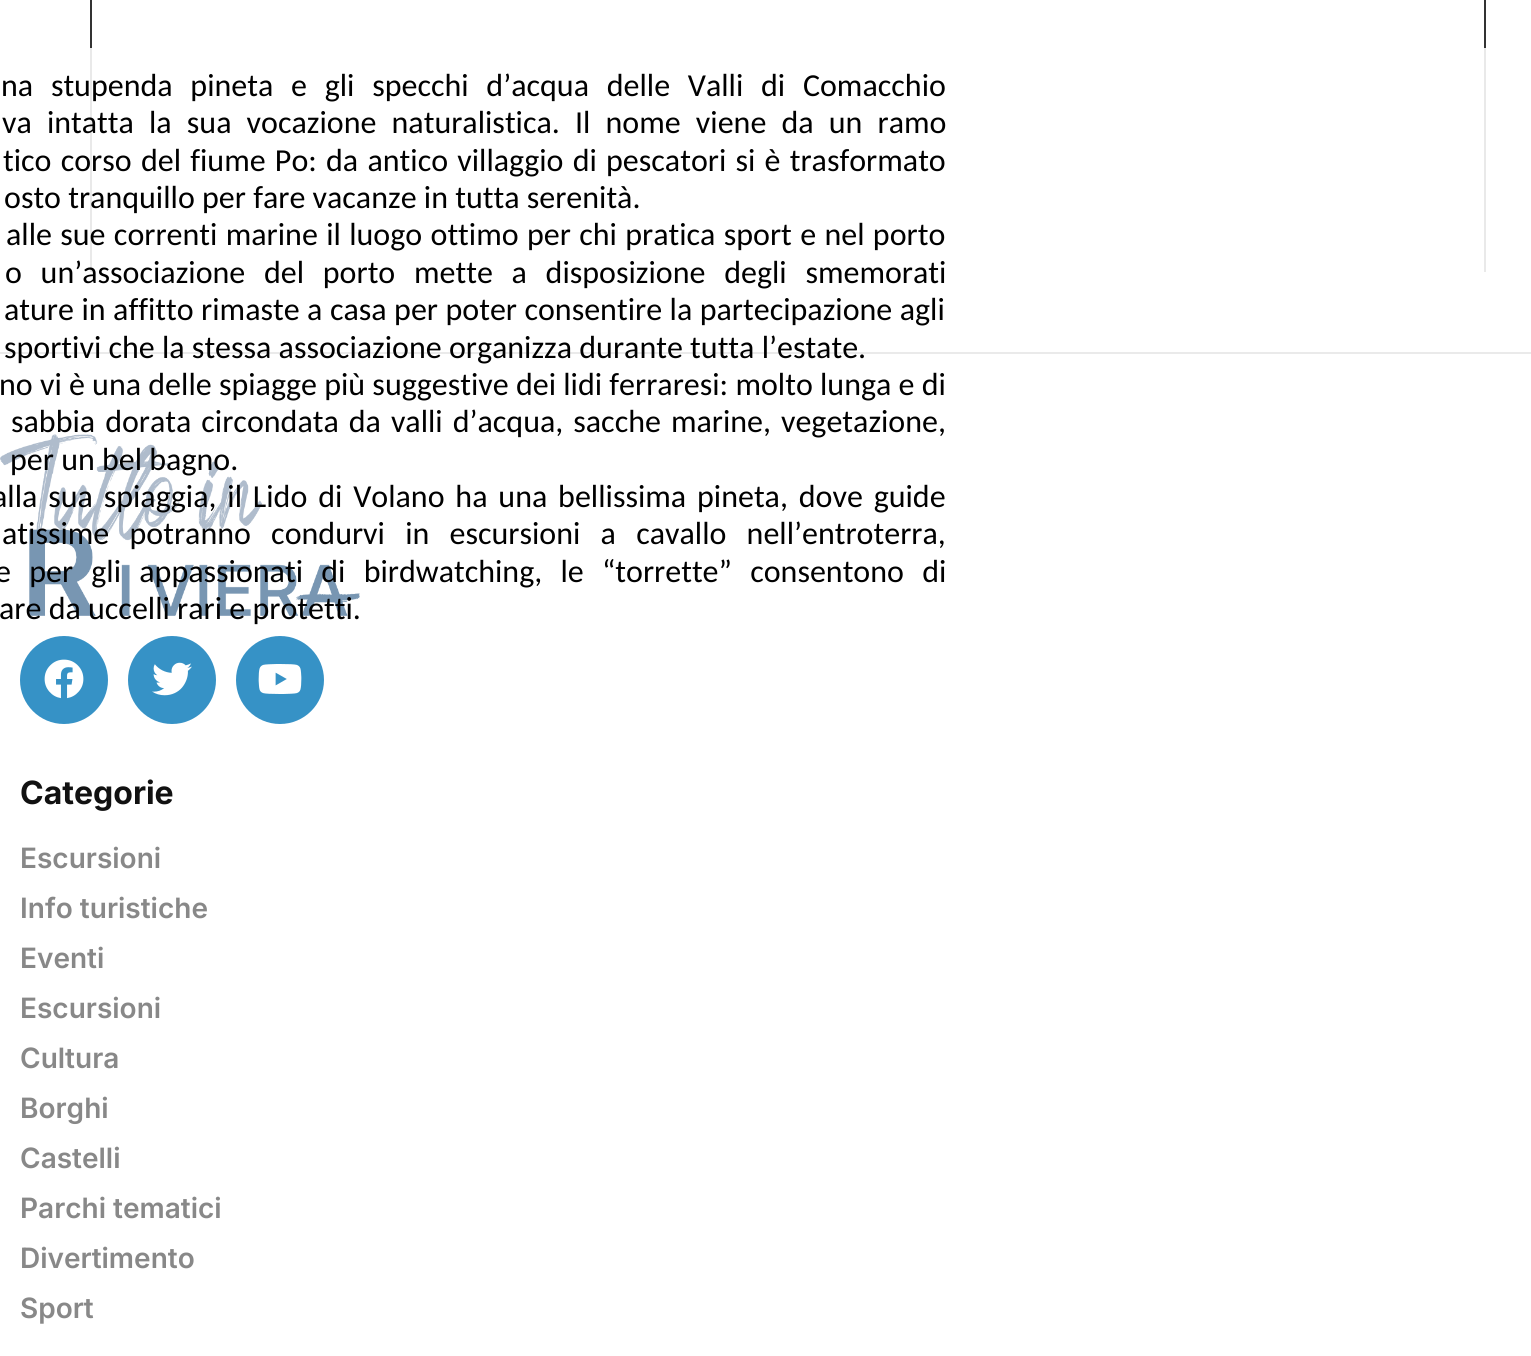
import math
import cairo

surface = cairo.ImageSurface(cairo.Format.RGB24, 1531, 1356)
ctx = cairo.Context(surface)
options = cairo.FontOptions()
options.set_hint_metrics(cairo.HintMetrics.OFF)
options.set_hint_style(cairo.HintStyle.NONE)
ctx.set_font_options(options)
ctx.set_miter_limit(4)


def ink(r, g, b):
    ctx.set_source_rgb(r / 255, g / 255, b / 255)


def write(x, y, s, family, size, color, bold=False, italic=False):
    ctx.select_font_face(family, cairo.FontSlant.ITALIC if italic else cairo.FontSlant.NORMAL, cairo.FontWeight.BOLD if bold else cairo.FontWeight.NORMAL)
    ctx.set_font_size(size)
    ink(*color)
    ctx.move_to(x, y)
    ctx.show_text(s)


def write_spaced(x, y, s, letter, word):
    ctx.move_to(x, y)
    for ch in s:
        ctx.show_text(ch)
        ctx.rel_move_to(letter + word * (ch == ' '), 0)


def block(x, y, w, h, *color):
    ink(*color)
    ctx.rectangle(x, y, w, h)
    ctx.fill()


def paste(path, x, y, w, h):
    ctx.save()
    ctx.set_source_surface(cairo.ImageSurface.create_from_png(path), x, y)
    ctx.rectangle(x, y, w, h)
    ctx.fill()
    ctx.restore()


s1 = dict(family="Carlito", size=32, color=(0, 0, 0))
s2 = dict(family="Inter", size=32, color=(17, 17, 17), bold=True)
s3 = dict(family="Inter SemiBold", size=28, color=(136, 136, 136))

ink(255, 255, 255)
ctx.paint()
block(1484, 0, 2, 48, 51, 51, 51)
block(90, 0, 2, 48, 51, 51, 51)
block(1484, 48, 2, 224, 233, 233, 233)
block(90, 48, 2, 224, 233, 233, 233)
ctx.select_font_face("Carlito")
ctx.set_font_size(32)
ink(0, 0, 0)
write_spaced(1, 96, "na stupenda pineta e gli specchi d’acqua delle Valli di Comacchio", 0, 10.5)
write_spaced(2, 133, "va intatta la sua vocazione naturalistica. Il nome viene da un ramo", 0, 7.9)
write_spaced(3, 171, "tico corso del fiume Po: da antico villaggio di pescatori si è trasformato", 0, 2)
write(4, 208, "osto tranquillo per fare vacanze in tutta serenità.", **s1)
write_spaced(6, 245, "alle sue correnti marine il luogo ottimo per chi pratica sport e nel porto", 0, 1.1)
write_spaced(5, 283, "o un’associazione del porto mette a disposizione degli smemorati", 0, 11.5)
write_spaced(4, 320, "ature in affitto rimaste a casa per poter consentire la partecipazione agli", 0, 0.25)
block(0, 352, 1531, 2, 234, 234, 234)
write(4, 358, "sportivi che la stessa associazione organizza durante tutta l’estate.", **s1)
write(-1, 395, "no vi è una delle spiagge più suggestive dei lidi ferraresi: molto lunga e di", **s1)
paste("pic1.png", 0, 434, 360, 182)
write_spaced(11, 432, "sabbia dorata circondata da valli d’acqua, sacche marine, vegetazione,", 0, 2.75)
write(10, 470, "per un bel bagno.", **s1)
write_spaced(-8, 507, "alla sua spiaggia, il Lido di Volano ha una bellissima pineta, dove guide", 0, 3.6)
write_spaced(2, 544, "atissime potranno condurvi in escursioni a cavallo nell’entroterra,", 0, 13)
write_spaced(-5, 582, "e per gli appassionati di birdwatching, le “torrette” consentono di", 0, 11)
write(-1, 619, "are da uccelli rari e protetti.", **s1)
ink(54, 146, 198)
ctx.new_path()
ctx.arc(64, 680, 44, 0, 2 * math.pi)
ctx.fill()
paste("pic2.png", 44, 659, 40, 40)
ctx.arc(172, 680, 44, 0, 2 * math.pi)
ctx.fill()
paste("pic3.png", 152, 662, 40, 34)
ctx.arc(280, 680, 44, 0, 2 * math.pi)
ctx.fill()
paste("pic4.png", 258, 664, 44, 30)
write(20, 804, "Categorie", **s2)
write(20, 868, "Escursioni", **s3)
write(20, 918, "Info turistiche", **s3)
write(20, 968, "Eventi", **s3)
write(20, 1018, "Escursioni", **s3)
write(20, 1068, "Cultura", **s3)
write(20, 1118, "Borghi", **s3)
write(20, 1168, "Castelli", **s3)
write(20, 1218, "Parchi tematici", **s3)
write(20, 1268, "Divertimento", **s3)
write(20, 1318, "Sport", **s3)
surface.write_to_png("screenshot.png")
